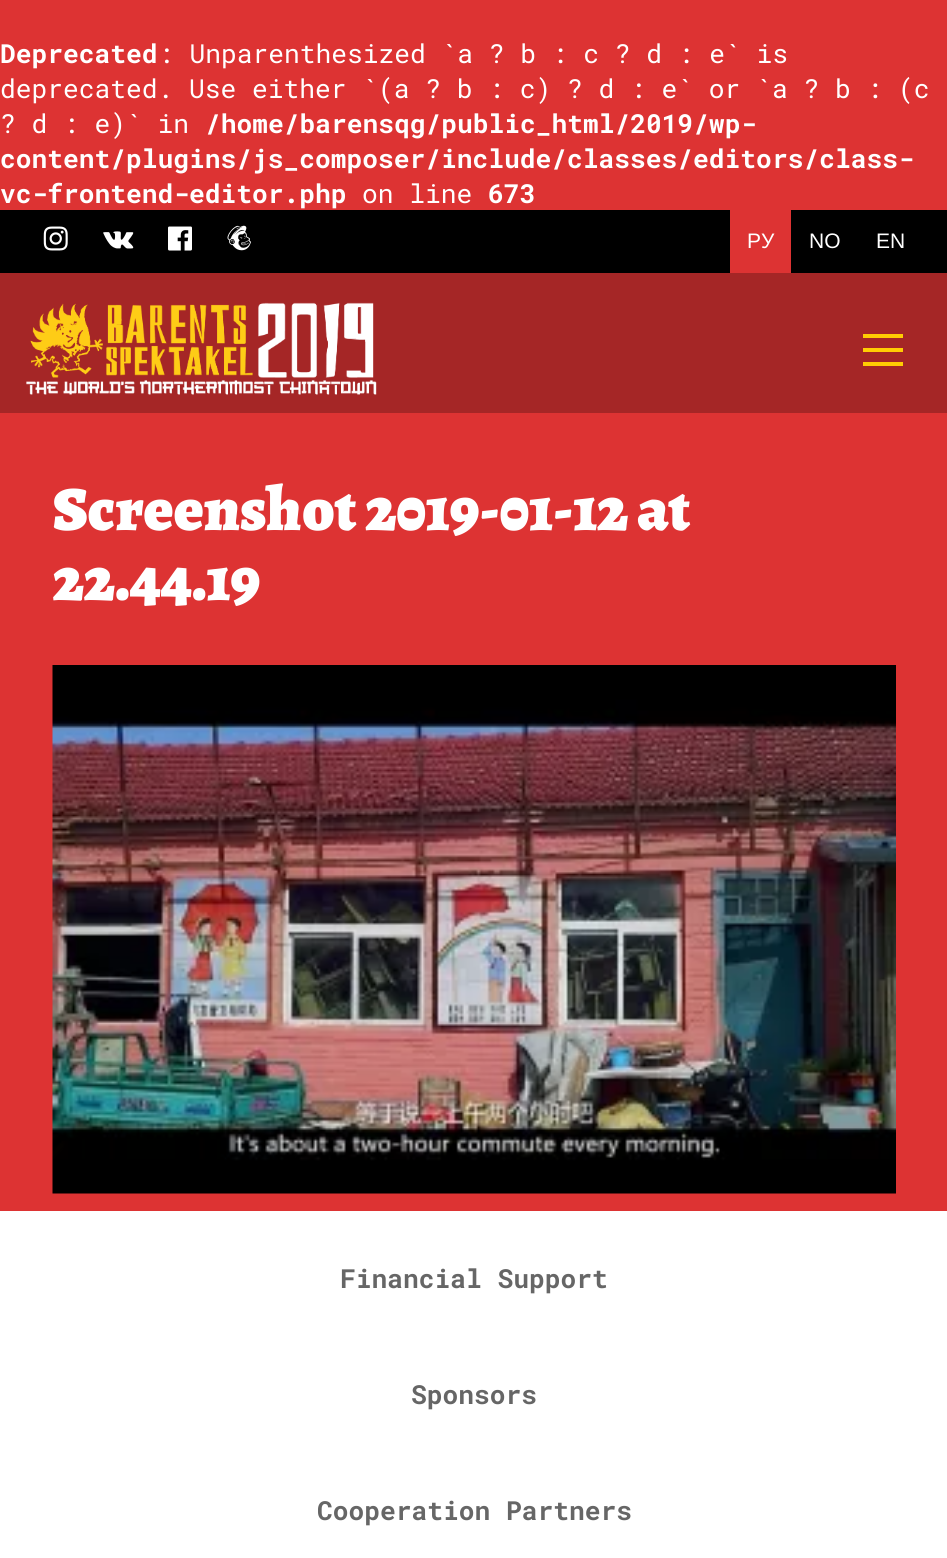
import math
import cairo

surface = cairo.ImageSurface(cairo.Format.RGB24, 947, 1558)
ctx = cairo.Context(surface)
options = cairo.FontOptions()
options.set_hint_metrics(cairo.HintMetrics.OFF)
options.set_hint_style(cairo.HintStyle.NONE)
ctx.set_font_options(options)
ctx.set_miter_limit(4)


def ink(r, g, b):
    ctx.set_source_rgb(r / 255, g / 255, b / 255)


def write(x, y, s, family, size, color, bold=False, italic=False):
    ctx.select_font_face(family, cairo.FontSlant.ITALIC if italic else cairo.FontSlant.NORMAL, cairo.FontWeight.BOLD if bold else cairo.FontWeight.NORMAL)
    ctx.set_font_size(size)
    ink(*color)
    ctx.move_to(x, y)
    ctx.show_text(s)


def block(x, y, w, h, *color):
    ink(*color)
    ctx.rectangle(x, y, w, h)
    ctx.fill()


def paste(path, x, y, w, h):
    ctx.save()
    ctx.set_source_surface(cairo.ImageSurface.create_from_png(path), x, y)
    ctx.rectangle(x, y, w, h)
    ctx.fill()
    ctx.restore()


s1 = dict(family="Roboto Mono", size=26.25, color=(255, 255, 255), bold=True)
s2 = dict(family="Roboto Mono", size=26.25, color=(255, 255, 255))
s3 = dict(family="Liberation Sans", size=21, color=(255, 255, 255))
s4 = dict(family="Alegreya Black", size=63, color=(255, 255, 255))
s5 = dict(family="Roboto Mono", size=26.25, color=(102, 102, 102), bold=True)

ink(221, 51, 51)
ctx.paint()
write(0, 63, "Deprecated", **s1)
write(158, 63, ": Unparenthesized `a ? b : c ? d : e` is", **s2)
write(0, 98, "deprecated. Use either `(a ? b : c) ? d : e` or `a ? b : (c", **s2)
write(0, 133, "? d : e)` in", **s2)
write(205, 133, "/home/barensqg/public_html/2019/wp-", **s1)
write(0, 168, "content/plugins/js_composer/include/classes/editors/class-", **s1)
write(0, 203, "vc-frontend-editor.php", **s1)
write(362, 203, "on line", **s2)
write(488, 203, "673", **s1)
block(0, 210, 947, 63, 0, 0, 0)
paste("pic1.png", 43, 226, 25, 25)
paste("pic2.png", 103, 231, 31, 18)
paste("pic3.png", 168, 226, 24, 25)
paste("pic4.png", 227, 225, 24, 26)
block(730, 210, 61, 63, 221, 51, 51)
write(747, 248, "РУ", **s3)
write(809, 248, "NO", **s3)
write(876, 248, "EN", **s3)
block(0, 273, 947, 140, 165, 38, 38)
paste("pic5.png", 26, 302, 351, 93)
block(863, 348, 40, 4, 255, 204, 3)
block(863, 334, 40, 4, 255, 204, 3)
block(863, 362, 40, 4, 255, 204, 3)
write(53, 530, "Screenshot 2019-01-12 at", **s4)
write(53, 600, "22.44.19", **s4)
paste("pic6.png", 52, 665, 844, 529)
block(0, 1211, 947, 347, 255, 255, 255)
write(340, 1288, "Financial Support", **s5)
write(411, 1404, "Sponsors", **s5)
write(317, 1520, "Cooperation Partners", **s5)
surface.write_to_png("screenshot.png")
